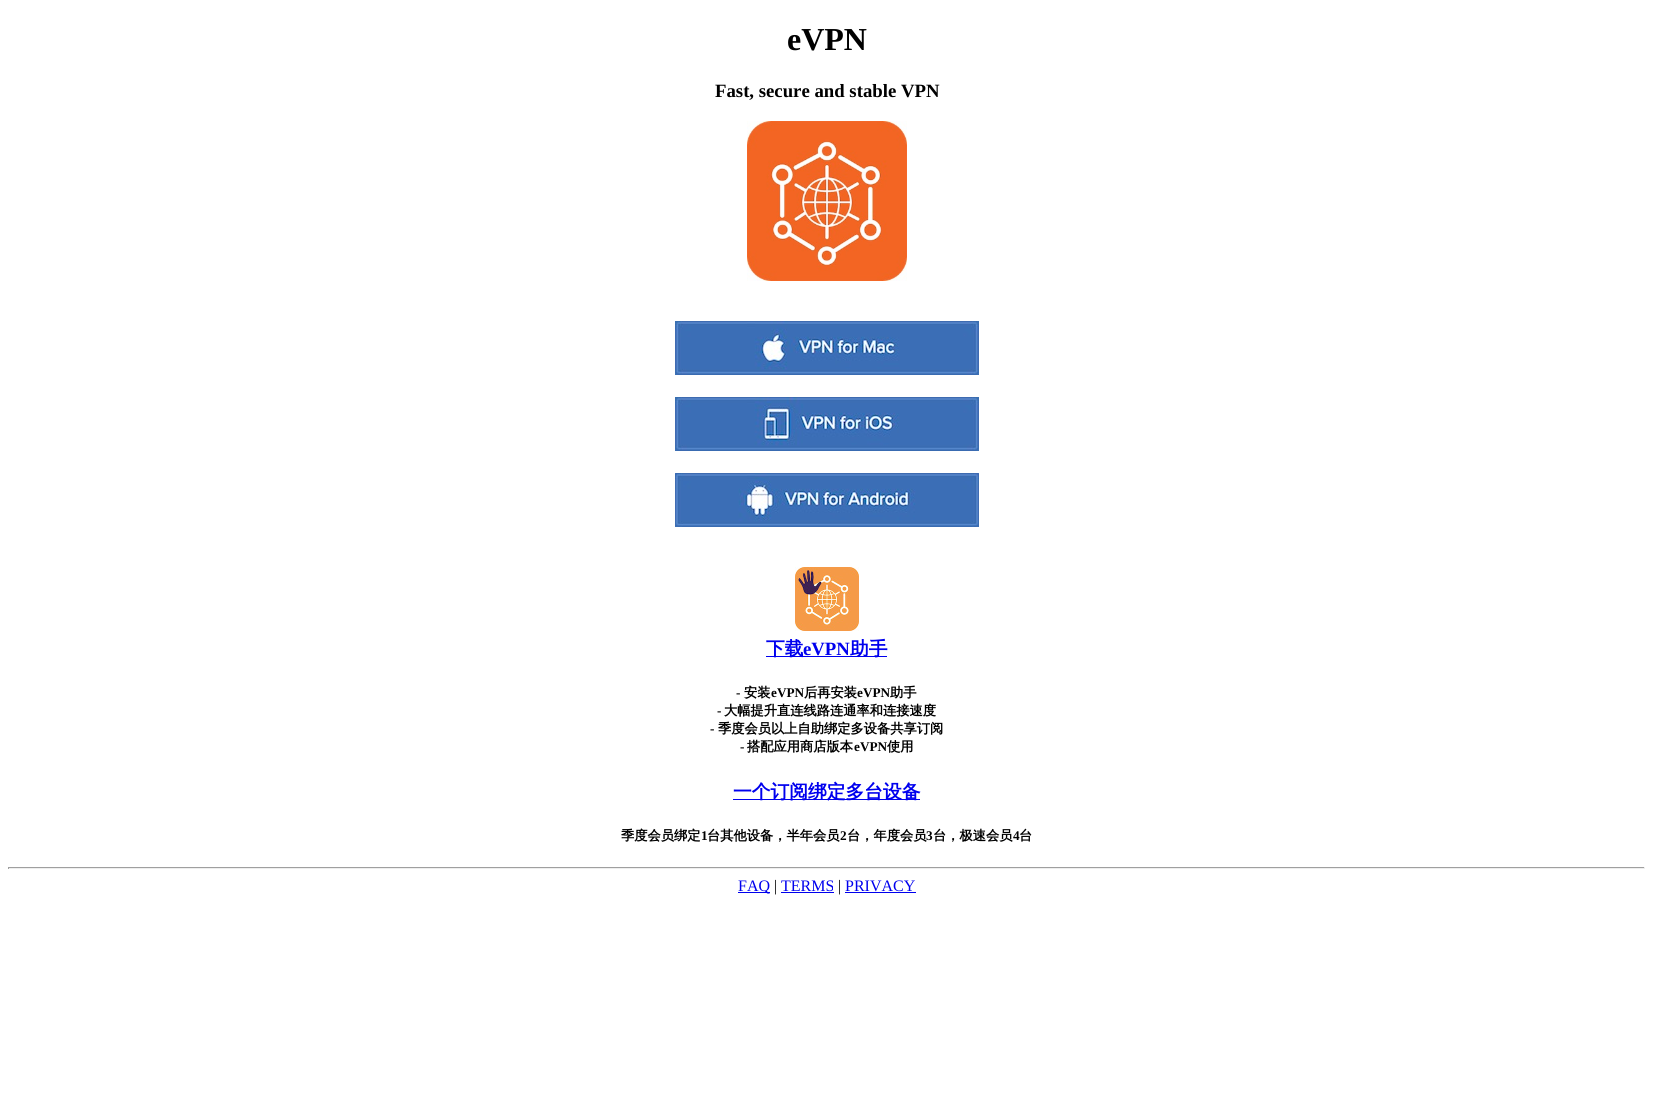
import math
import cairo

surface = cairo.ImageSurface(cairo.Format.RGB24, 1653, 1095)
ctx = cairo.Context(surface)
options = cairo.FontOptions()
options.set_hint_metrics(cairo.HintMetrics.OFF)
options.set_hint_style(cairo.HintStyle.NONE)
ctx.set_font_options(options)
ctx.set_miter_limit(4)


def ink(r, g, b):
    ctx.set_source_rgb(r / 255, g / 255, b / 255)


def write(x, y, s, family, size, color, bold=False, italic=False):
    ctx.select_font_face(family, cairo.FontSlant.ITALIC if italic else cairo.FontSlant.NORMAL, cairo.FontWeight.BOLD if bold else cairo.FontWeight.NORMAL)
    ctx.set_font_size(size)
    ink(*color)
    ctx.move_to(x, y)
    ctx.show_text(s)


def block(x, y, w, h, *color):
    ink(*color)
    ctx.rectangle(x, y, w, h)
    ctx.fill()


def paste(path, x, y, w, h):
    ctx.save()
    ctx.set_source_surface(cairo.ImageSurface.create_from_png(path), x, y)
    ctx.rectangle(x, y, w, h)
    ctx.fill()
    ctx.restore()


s1 = dict(family="Liberation Serif", size=32, color=(0, 0, 0), bold=True)
s2 = dict(family="Liberation Serif", size=18.75, color=(0, 0, 0), bold=True)
s3 = dict(family="WenQuanYi Zen Hei", size=18.75, color=(0, 0, 238), bold=True)
s4 = dict(family="Liberation Serif", size=18.75, color=(0, 0, 238), bold=True)
s5 = dict(family="Liberation Serif", size=13.25, color=(0, 0, 0), bold=True)
s6 = dict(family="WenQuanYi Zen Hei", size=13.25, color=(0, 0, 0), bold=True)
s7 = dict(family="Liberation Serif", size=16, color=(0, 0, 238))
s8 = dict(family="Liberation Serif", size=16, color=(0, 0, 0))

ink(255, 255, 255)
ctx.paint()
write(787, 50, "eVPN", **s1)
write(715, 97, "Fast, secure and stable VPN", **s2)
paste("pic1.png", 747, 121, 160, 160)
paste("pic2.png", 675, 321, 304, 54)
paste("pic3.png", 675, 397, 304, 54)
paste("pic4.png", 675, 473, 304, 54)
paste("pic5.png", 795, 567, 64, 64)
block(766, 656, 121, 1, 0, 0, 238)
write(766, 655, "下载", **s3)
write(803, 655, "eVPN", **s4)
write(850, 655, "助手", **s3)
write(736, 697, "-", **s5)
write(744, 697, "安装", **s6)
write(771, 697, "eVPN", **s5)
write(804, 697, "后再安装", **s6)
write(857, 697, "eVPN", **s5)
write(890, 697, "助手", **s6)
write(717, 715, "-", **s5)
write(724, 715, "大幅提升直连线路连通率和连接速度", **s6)
write(710, 733, "-", **s5)
write(718, 733, "季度会员以上自助绑定多设备共享订阅", **s6)
write(740, 751, "-", **s5)
write(747, 751, "搭配应用商店版本", **s6)
write(854, 751, "eVPN", **s5)
write(887, 751, "使用", **s6)
block(733, 799, 187, 1, 0, 0, 238)
write(733, 798, "一个订阅绑定多台设备", **s3)
write(621, 840, "季度会员绑定", **s6)
write(701, 840, "1", **s5)
write(707, 840, "台其他设备，半年会员", **s6)
write(840, 840, "2", **s5)
write(847, 840, "台，年度会员", **s6)
write(926, 840, "3", **s5)
write(933, 840, "台，极速会员", **s6)
write(1013, 840, "4", **s5)
write(1019, 840, "台", **s6)
block(8, 867, 1637, 1, 159, 159, 159)
block(1644, 867, 1, 2, 238, 238, 238)
block(8, 868, 1637, 1, 238, 238, 238)
block(8, 867, 1, 2, 159, 159, 159)
block(738, 892, 32, 1, 0, 0, 238)
write(738, 891, "FAQ", **s7)
write(774, 891, "|", **s8)
write(781, 891, "TERMS", **s7)
block(781, 892, 53, 1, 0, 0, 238)
write(838, 891, "|", **s8)
write(845, 891, "PRIVACY", **s7)
block(845, 892, 71, 1, 0, 0, 238)
surface.write_to_png("screenshot.png")
